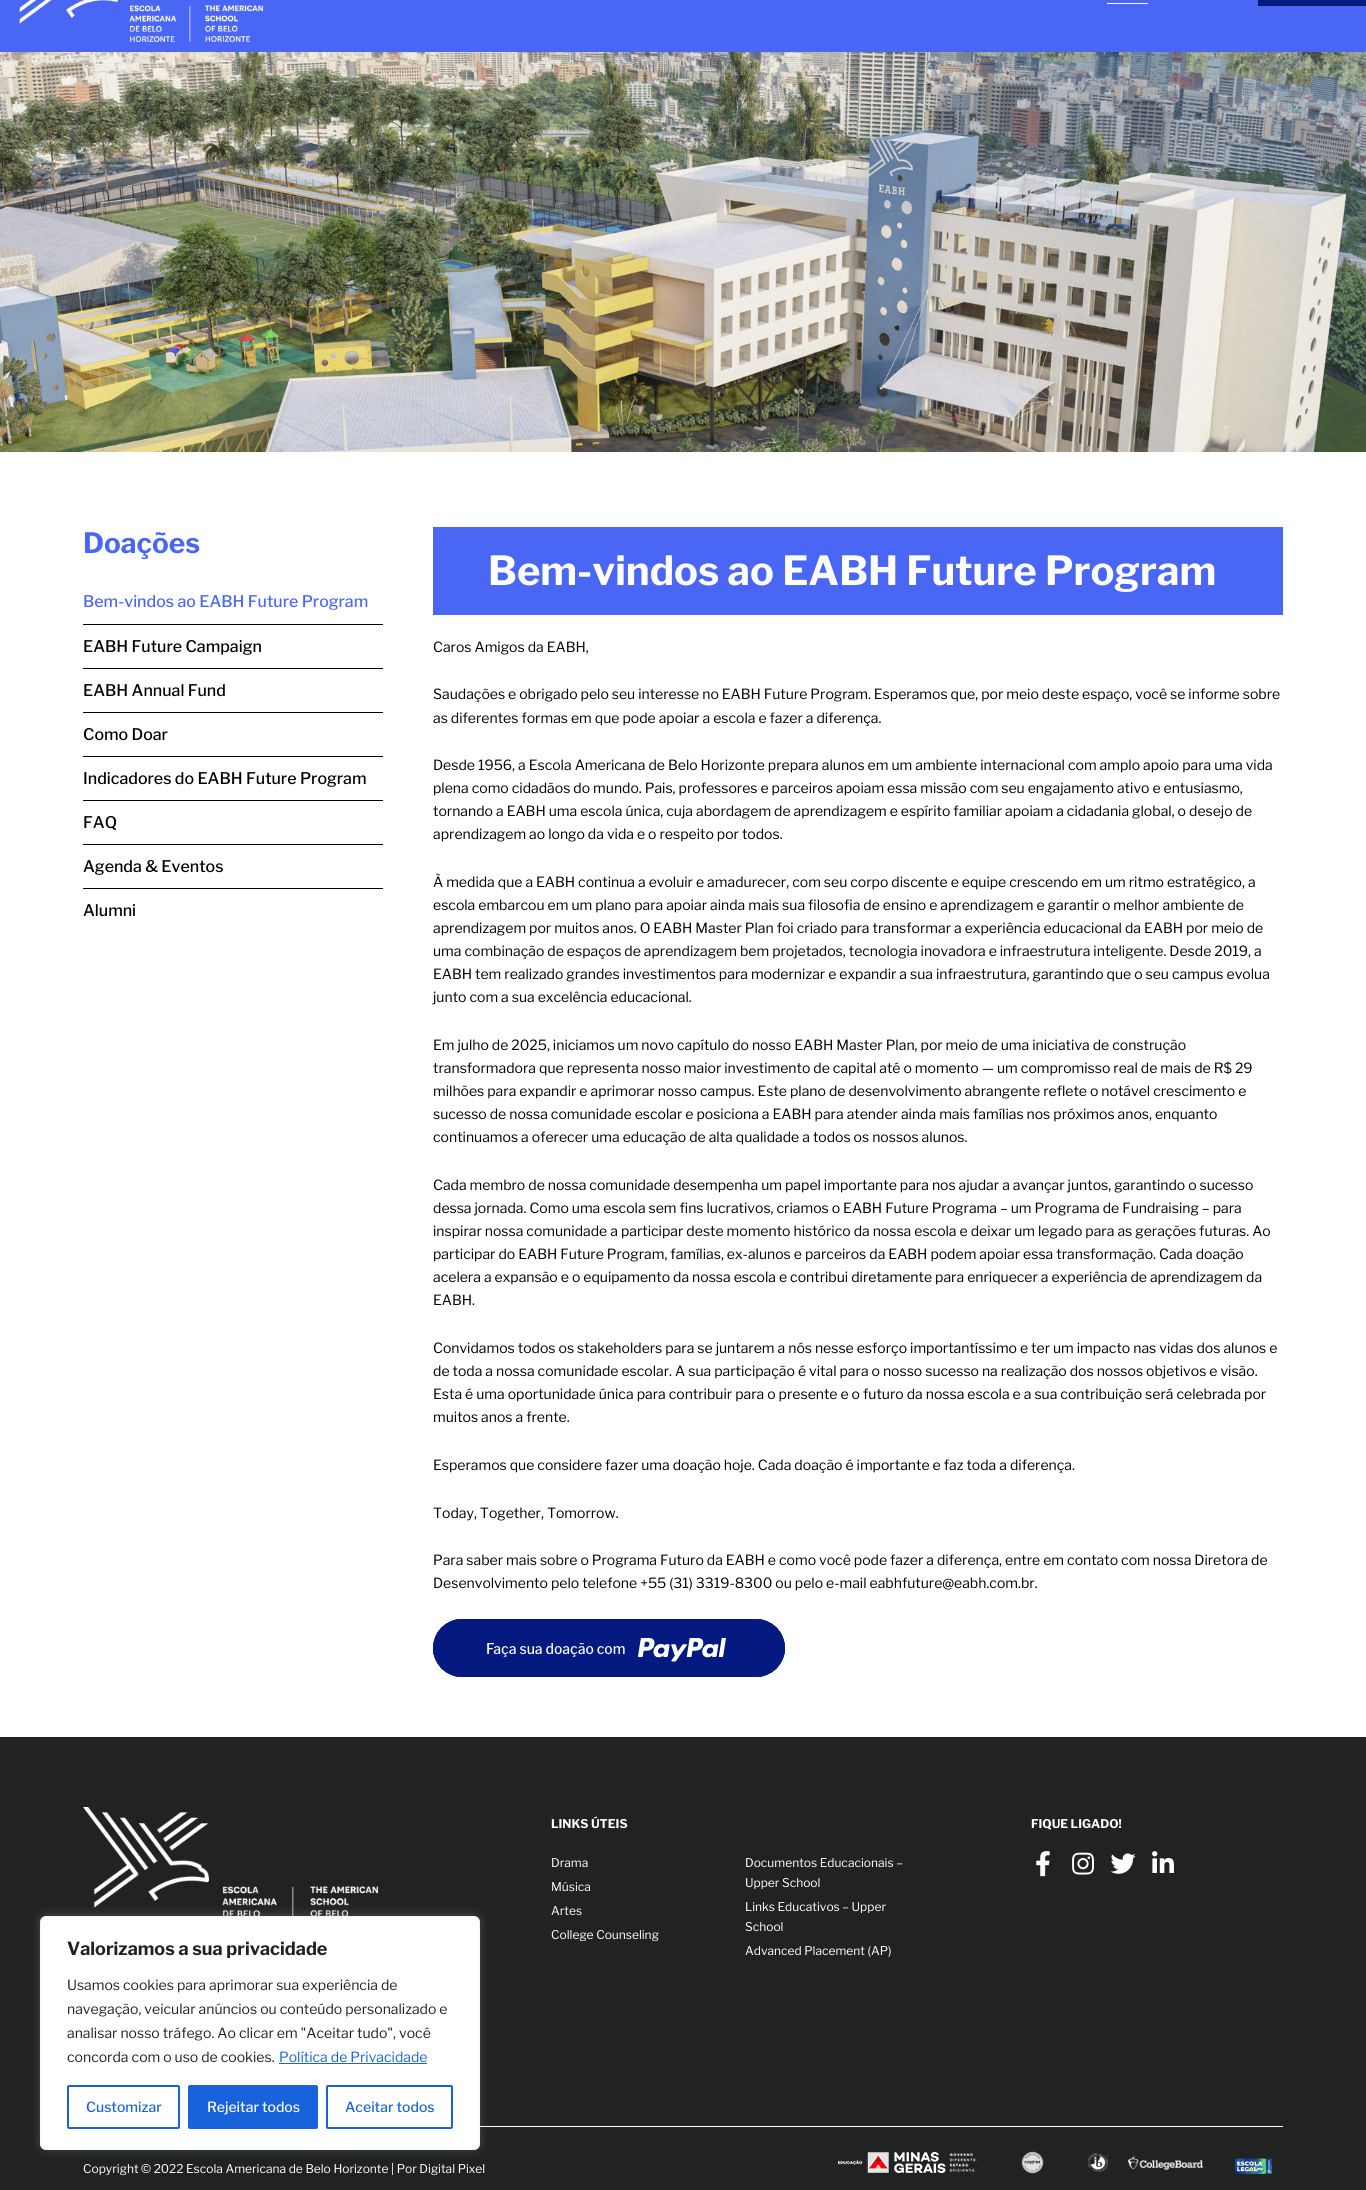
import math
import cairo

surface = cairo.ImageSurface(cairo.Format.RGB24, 1366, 2190)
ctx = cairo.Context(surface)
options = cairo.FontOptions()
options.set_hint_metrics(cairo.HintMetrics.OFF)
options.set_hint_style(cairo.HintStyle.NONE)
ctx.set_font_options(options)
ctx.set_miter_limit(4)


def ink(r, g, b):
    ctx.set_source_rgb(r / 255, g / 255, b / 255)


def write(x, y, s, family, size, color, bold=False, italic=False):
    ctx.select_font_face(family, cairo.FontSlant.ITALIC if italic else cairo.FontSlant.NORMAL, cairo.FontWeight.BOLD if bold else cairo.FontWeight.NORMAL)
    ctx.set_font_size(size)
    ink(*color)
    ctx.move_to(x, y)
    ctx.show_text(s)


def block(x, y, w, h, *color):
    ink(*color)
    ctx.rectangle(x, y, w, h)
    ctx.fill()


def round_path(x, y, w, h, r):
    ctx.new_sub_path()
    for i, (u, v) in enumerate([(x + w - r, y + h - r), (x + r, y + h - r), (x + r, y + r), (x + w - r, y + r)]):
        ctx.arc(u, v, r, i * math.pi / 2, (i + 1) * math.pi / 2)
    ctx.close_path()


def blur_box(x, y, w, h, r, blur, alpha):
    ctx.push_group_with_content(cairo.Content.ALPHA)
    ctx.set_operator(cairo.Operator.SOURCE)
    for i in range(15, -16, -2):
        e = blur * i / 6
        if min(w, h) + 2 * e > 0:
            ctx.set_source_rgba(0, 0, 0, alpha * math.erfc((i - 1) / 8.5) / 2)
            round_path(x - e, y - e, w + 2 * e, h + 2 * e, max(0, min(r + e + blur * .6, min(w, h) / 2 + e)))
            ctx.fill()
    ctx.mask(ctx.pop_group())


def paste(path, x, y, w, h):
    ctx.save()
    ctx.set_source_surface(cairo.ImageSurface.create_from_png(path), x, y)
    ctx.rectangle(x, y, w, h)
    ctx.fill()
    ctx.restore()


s1 = dict(family="Libre Franklin", size=28, color=(74, 102, 244), bold=True)
s2 = dict(family="Libre Franklin Medium", size=16, color=(74, 102, 244))
s3 = dict(family="Libre Franklin Medium", size=16, color=(0, 0, 0))
s4 = dict(family="Libre Franklin", size=40, color=(255, 255, 255), bold=True)
s5 = dict(family="Libre Franklin", size=14, color=(0, 0, 0))
s6 = dict(family="Libre Franklin", size=12, color=(255, 255, 255), bold=True)
s7 = dict(family="Libre Franklin", size=12, color=(255, 255, 255))
s8 = dict(family="Libre Franklin", size=18, color=(33, 33, 33), bold=True)
s9 = dict(family="Libre Franklin", size=14, color=(33, 33, 33))
s10 = dict(family="Libre Franklin", size=14, color=(24, 99, 220))
s11 = dict(family="Libre Franklin Medium", size=14, color=(24, 99, 220))
s12 = dict(family="Libre Franklin Medium", size=14, color=(255, 255, 255))

ink(255, 255, 255)
ctx.paint()
block(0, 0, 1366, 52, 74, 102, 244)
paste("pic1.png", 19, 0, 244, 42)
block(1107, 3, 41, 1, 255, 255, 255)
block(1258, 0, 108, 6, 5, 26, 128)
paste("pic2.png", 0, 52, 1366, 400)
write(83, 553, "Doações", **s1)
block(83, 624, 300, 1, 1, 1, 1)
write(83, 607, "Bem-vindos ao EABH Future Program", **s2)
block(83, 668, 300, 1, 1, 1, 1)
write(83, 652, "EABH Future Campaign", **s3)
block(83, 712, 300, 1, 1, 1, 1)
write(83, 696, "EABH Annual Fund", **s3)
block(83, 756, 300, 1, 1, 1, 1)
write(83, 740, "Como Doar", **s3)
block(83, 800, 300, 1, 1, 1, 1)
write(83, 784, "Indicadores do EABH Future Program", **s3)
block(83, 844, 300, 1, 1, 1, 1)
write(83, 828, "FAQ", **s3)
block(83, 888, 300, 1, 1, 1, 1)
write(83, 872, "Agenda & Eventos", **s3)
write(83, 916, "Alumni", **s3)
block(433, 527, 850, 88, 74, 102, 244)
write(488, 585, "Bem-vindos ao EABH Future Program", **s4)
write(433, 652, "Caros Amigos da EABH,", **s5)
write(433, 699, "Saudações e obrigado pelo seu interesse no EABH Future Program. Esperamos que, por meio deste espaço, você se informe sobre", **s5)
write(433, 723, "as diferentes formas em que pode apoiar a escola e fazer a diferença.", **s5)
write(433, 770, "Desde 1956, a Escola Americana de Belo Horizonte prepara alunos em um ambiente internacional com amplo apoio para uma vida", **s5)
write(433, 793, "plena como cidadãos do mundo. Pais, professores e parceiros apoiam essa missão com seu engajamento ativo e entusiasmo,", **s5)
write(433, 816, "tornando a EABH uma escola única, cuja abordagem de aprendizagem e espírito familiar apoiam a cidadania global, o desejo de", **s5)
write(433, 839, "aprendizagem ao longo da vida e o respeito por todos.", **s5)
write(433, 887, "À medida que a EABH continua a evoluir e amadurecer, com seu corpo discente e equipe crescendo em um ritmo estratégico, a", **s5)
write(433, 910, "escola embarcou em um plano para apoiar ainda mais sua filosofia de ensino e aprendizagem e garantir o melhor ambiente de", **s5)
write(433, 933, "aprendizagem por muitos anos. O EABH Master Plan foi criado para transformar a experiência educacional da EABH por meio de", **s5)
write(433, 956, "uma combinação de espaços de aprendizagem bem projetados, tecnologia inovadora e infraestrutura inteligente. Desde 2019, a", **s5)
write(433, 979, "EABH tem realizado grandes investimentos para modernizar e expandir a sua infraestrutura, garantindo que o seu campus evolua", **s5)
write(433, 1002, "junto com a sua excelência educacional.", **s5)
write(433, 1050, "Em julho de 2025, iniciamos um novo capítulo do nosso EABH Master Plan, por meio de uma iniciativa de construção", **s5)
write(433, 1073, "transformadora que representa nosso maior investimento de capital até o momento — um compromisso real de mais de R$ 29", **s5)
write(433, 1096, "milhões para expandir e aprimorar nosso campus. Este plano de desenvolvimento abrangente reflete o notável crescimento e", **s5)
write(433, 1119, "sucesso de nossa comunidade escolar e posiciona a EABH para atender ainda mais famílias nos próximos anos, enquanto", **s5)
write(433, 1142, "continuamos a oferecer uma educação de alta qualidade a todos os nossos alunos.", **s5)
write(433, 1190, "Cada membro de nossa comunidade desempenha um papel importante para nos ajudar a avançar juntos, garantindo o sucesso", **s5)
write(433, 1213, "dessa jornada. Como uma escola sem fins lucrativos, criamos o EABH Future Programa – um Programa de Fundraising – para", **s5)
write(433, 1236, "inspirar nossa comunidade a participar deste momento histórico da nossa escola e deixar um legado para as gerações futuras. Ao", **s5)
write(433, 1259, "participar do EABH Future Program, famílias, ex-alunos e parceiros da EABH podem apoiar essa transformação. Cada doação", **s5)
write(433, 1282, "acelera a expansão e o equipamento da nossa escola e contribui diretamente para enriquecer a experiência de aprendizagem da", **s5)
write(433, 1305, "EABH.", **s5)
write(433, 1353, "Convidamos todos os stakeholders para se juntarem a nós nesse esforço importantíssimo e ter um impacto nas vidas dos alunos e", **s5)
write(433, 1376, "de toda a nossa comunidade escolar. A sua participação é vital para o nosso sucesso na realização dos nossos objetivos e visão.", **s5)
write(433, 1399, "Esta é uma oportunidade única para contribuir para o presente e o futuro da nossa escola e a sua contribuição será celebrada por", **s5)
write(433, 1422, "muitos anos a frente.", **s5)
write(433, 1470, "Esperamos que considere fazer uma doação hoje. Cada doação é importante e faz toda a diferença.", **s5)
write(433, 1518, "Today, Together, Tomorrow.", **s5)
write(433, 1565, "Para saber mais sobre o Programa Futuro da EABH e como você pode fazer a diferença, entre em contato com nossa Diretora de", **s5)
write(433, 1588, "Desenvolvimento pelo telefone +55 (31) 3319-8300 ou pelo e-mail eabhfuture@eabh.com.br.", **s5)
paste("pic3.png", 433, 1619, 352, 58)
block(0, 1737, 1366, 453, 33, 34, 34)
paste("pic4.png", 83, 1807, 295, 109)
write(551, 1828, "LINKS ÚTEIS", **s6)
write(551, 1867, "Drama", **s7)
write(745, 1867, "Documentos Educacionais –", **s7)
write(745, 1887, "Upper School", **s7)
write(551, 1891, "Música", **s7)
write(551, 1915, "Artes", **s7)
write(745, 1911, "Links Educativos – Upper", **s7)
write(745, 1931, "School", **s7)
write(551, 1939, "College Counseling", **s7)
write(745, 1955, "Advanced Placement (AP)", **s7)
write(1031, 1828, "FIQUE LIGADO!", **s6)
paste("pic5.png", 1036, 1851, 14, 26)
paste("pic6.png", 1072, 1852, 22, 23)
paste("pic7.png", 1110, 1853, 26, 21)
paste("pic8.png", 1152, 1851, 22, 22)
block(480, 2126, 803, 1, 255, 255, 255)
write(83, 2173, "Copyright © 2022 Escola Americana de Belo Horizonte | Por Digital Pixel", **s7)
paste("pic9.png", 838, 2152, 139, 21)
paste("pic10.png", 1021, 2151, 23, 23)
paste("pic11.png", 1088, 2153, 20, 19)
paste("pic12.png", 1128, 2156, 76, 14)
paste("pic13.png", 1234, 2158, 38, 17)
ink(172, 171, 171)
blur_box(40, 1915, 440, 234, 6, 5, 0.3)
ink(255, 255, 255)
round_path(40.5, 1916.5, 439, 233, 5.5)
ctx.fill_preserve()
ink(244, 244, 244)
ctx.set_line_width(1)
ctx.stroke()
write(67, 1955, "Valorizamos a sua privacidade", **s8)
write(67, 1990, "Usamos cookies para aprimorar sua experiência de", **s9)
write(67, 2014, "navegação, veicular anúncios ou conteúdo personalizado e", **s9)
write(67, 2038, "analisar nosso tráfego. Ao clicar em \"Aceitar tudo\", você", **s9)
write(67, 2062, "concorda com o uso de cookies.", **s9)
write(279, 2062, "Política de Privacidade", **s10)
block(279, 2063, 148, 1, 24, 99, 220)
round_path(68, 2086, 111, 42, 1)
ctx.set_line_width(2)
ctx.stroke()
write(86, 2112, "Customizar", **s11)
round_path(189, 2086, 128, 42, 1)
ctx.fill_preserve()
ctx.stroke()
write(207, 2112, "Rejeitar todos", **s12)
round_path(327, 2086, 125, 42, 1)
ink(24, 99, 220)
ctx.stroke()
write(345, 2112, "Aceitar todos", **s11)
surface.write_to_png("screenshot.png")
